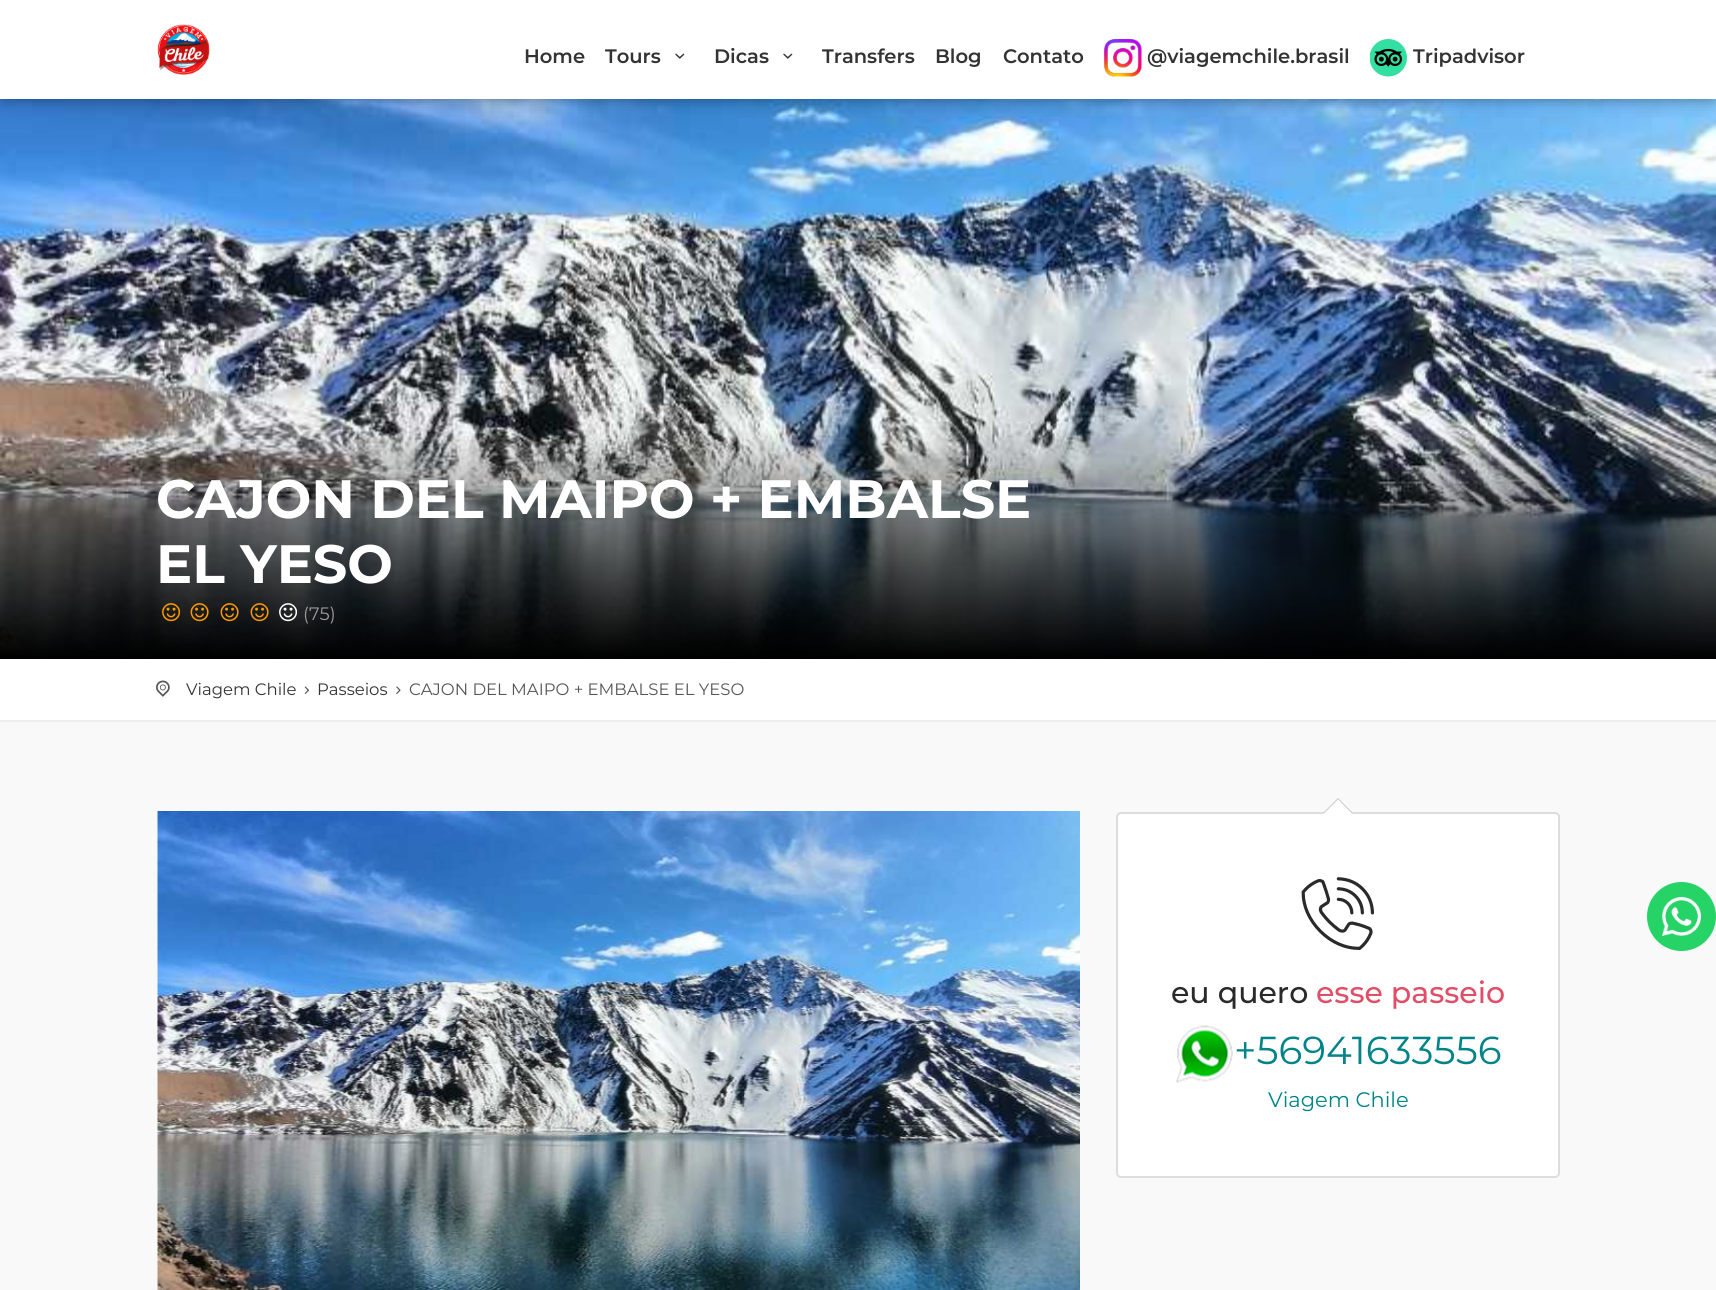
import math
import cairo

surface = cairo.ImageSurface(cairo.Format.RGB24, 1716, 1290)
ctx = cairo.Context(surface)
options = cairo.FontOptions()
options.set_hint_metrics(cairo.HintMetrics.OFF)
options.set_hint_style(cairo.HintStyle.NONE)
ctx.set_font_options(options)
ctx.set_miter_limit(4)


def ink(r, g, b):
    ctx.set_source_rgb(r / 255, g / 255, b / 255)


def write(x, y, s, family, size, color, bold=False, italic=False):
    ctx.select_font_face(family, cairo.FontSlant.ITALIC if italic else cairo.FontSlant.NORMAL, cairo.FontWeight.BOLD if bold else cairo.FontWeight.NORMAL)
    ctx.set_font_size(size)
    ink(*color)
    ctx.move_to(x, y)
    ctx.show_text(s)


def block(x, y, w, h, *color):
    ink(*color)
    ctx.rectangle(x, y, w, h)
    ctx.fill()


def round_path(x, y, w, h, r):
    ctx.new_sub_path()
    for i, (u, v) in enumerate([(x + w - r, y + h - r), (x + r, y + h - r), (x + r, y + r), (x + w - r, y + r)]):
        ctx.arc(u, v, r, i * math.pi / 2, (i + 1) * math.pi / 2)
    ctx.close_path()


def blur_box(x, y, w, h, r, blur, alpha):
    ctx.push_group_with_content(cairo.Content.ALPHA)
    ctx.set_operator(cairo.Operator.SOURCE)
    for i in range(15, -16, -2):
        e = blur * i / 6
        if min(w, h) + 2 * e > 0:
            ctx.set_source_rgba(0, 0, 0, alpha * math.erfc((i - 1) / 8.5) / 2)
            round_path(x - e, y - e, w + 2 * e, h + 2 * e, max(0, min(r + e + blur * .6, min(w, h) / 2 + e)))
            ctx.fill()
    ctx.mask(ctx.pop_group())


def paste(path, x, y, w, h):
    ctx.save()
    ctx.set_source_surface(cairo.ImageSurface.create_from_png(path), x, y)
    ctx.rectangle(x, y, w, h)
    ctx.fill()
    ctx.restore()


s1 = dict(family="Montserrat SemiBold", size=19.5, color=(51, 51, 51))
s2 = dict(family="Montserrat", size=54, color=(255, 255, 255), bold=True)
s3 = dict(family="Montserrat", size=18, color=(153, 153, 153))
s4 = dict(family="Montserrat", size=16.5, color=(51, 51, 51))
s5 = dict(family="Montserrat", size=16.5, color=(85, 85, 85))
s6 = dict(family="Montserrat Medium", size=30, color=(42, 42, 42))
s7 = dict(family="Montserrat Medium", size=30, color=(224, 79, 103))
s8 = dict(family="Montserrat", size=39, color=(0, 132, 137))
s9 = dict(family="Montserrat", size=21, color=(0, 132, 137))

ink(255, 255, 255)
ctx.paint()
paste("pic5.png", 0, 99, 1716, 560)
ink(0, 0, 0)
blur_box(3, 6, 1710, 93, 0, 7.5, 0.41)
block(0, 0, 1716, 99, 255, 255, 255)
paste("pic1.png", 157, 24, 53, 51)
write(524, 63, "Home", **s1)
write(605, 63, "Tours", **s1)
paste("pic2.png", 675, 53, 10, 6)
write(714, 63, "Dicas", **s1)
paste("pic2.png", 783, 53, 10, 6)
write(822, 63, "Transfers", **s1)
write(935, 63, "Blog", **s1)
write(1003, 63, "Contato", **s1)
paste("pic3.png", 1104, 39, 38, 38)
write(1147, 63, "@viagemchile.brasil", **s1)
paste("pic4.png", 1370, 39, 37, 38)
write(1413, 63, "Tripadvisor", **s1)
write(156, 518, "CAJON DEL MAIPO + EMBALSE", **s2)
write(156, 583, "EL YESO", **s2)
paste("pic6.png", 162, 603, 19, 19)
paste("pic7.png", 190, 603, 19, 19)
paste("pic8.png", 220, 603, 19, 19)
paste("pic9.png", 250, 603, 19, 19)
paste("pic10.png", 279, 603, 19, 19)
write(303, 620, "(75)", **s3)
block(0, 722, 1716, 568, 249, 249, 249)
block(0, 720, 1716, 2, 237, 237, 237)
paste("pic11.png", 156, 680, 14, 17)
write(186, 695, "Viagem Chile", **s4)
paste("pic12.png", 304, 686, 5, 8)
write(317, 695, "Passeios", **s4)
paste("pic13.png", 396, 686, 5, 8)
write(409, 695, "CAJON DEL MAIPO + EMBALSE EL YESO", **s5)
paste("pic14.png", 157, 811, 923, 479)
ink(255, 255, 255)
round_path(1117, 813, 442, 364, 4)
ctx.fill_preserve()
ink(221, 221, 221)
ctx.stroke()
ink(204, 204, 204)
ctx.new_path()
ctx.move_to(1353, 813)
ctx.line_to(1323, 813)
ctx.line_to(1338, 798)
ctx.close_path()
ctx.fill()
ink(255, 255, 255)
ctx.new_path()
ctx.move_to(1353, 814.5)
ctx.line_to(1323, 814.5)
ctx.line_to(1338, 799.5)
ctx.close_path()
ctx.fill()
paste("pic15.png", 1301, 877, 73, 73)
write(1171, 1003, "eu quero", **s6)
write(1316, 1003, "esse passeio", **s7)
paste("pic16.png", 1176, 1025, 57, 58)
write(1234, 1064, "+56941633556", **s8)
write(1268, 1107, "Viagem Chile", **s9)
ink(37, 211, 102)
ctx.new_path()
ctx.arc(1681.5, 916.5, 34.5, 0, 2 * math.pi)
ctx.fill()
paste("pic17.png", 1662, 897, 39, 39)
surface.write_to_png("screenshot.png")
